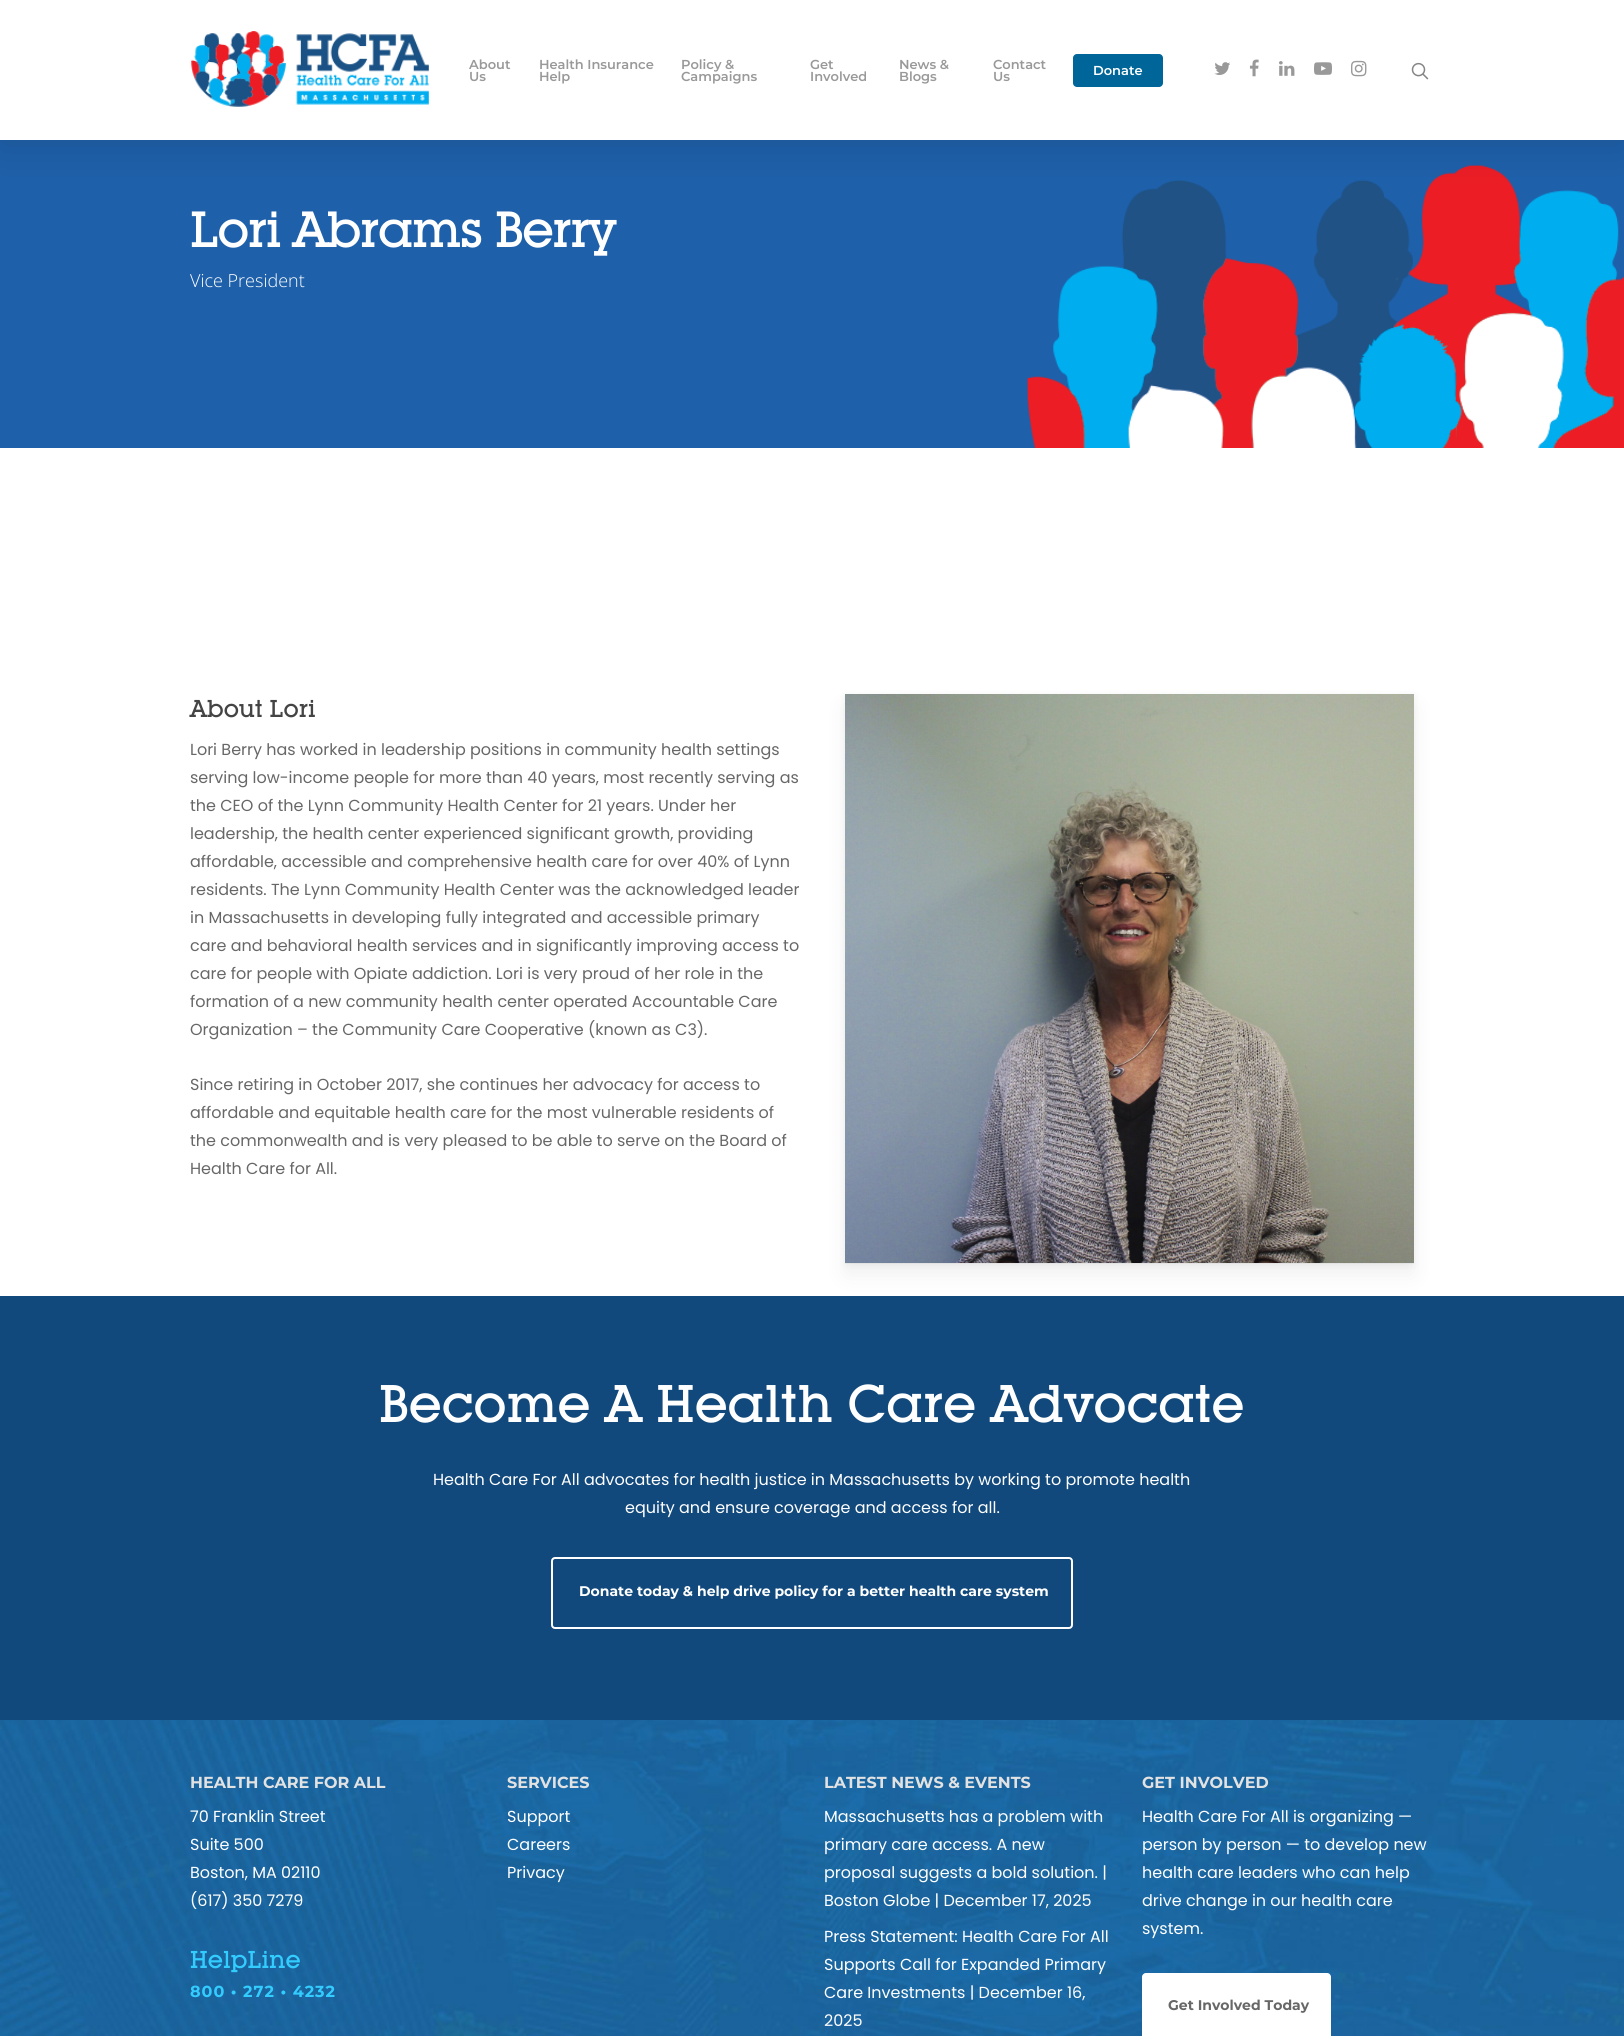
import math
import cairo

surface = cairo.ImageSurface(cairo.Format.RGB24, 1624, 2036)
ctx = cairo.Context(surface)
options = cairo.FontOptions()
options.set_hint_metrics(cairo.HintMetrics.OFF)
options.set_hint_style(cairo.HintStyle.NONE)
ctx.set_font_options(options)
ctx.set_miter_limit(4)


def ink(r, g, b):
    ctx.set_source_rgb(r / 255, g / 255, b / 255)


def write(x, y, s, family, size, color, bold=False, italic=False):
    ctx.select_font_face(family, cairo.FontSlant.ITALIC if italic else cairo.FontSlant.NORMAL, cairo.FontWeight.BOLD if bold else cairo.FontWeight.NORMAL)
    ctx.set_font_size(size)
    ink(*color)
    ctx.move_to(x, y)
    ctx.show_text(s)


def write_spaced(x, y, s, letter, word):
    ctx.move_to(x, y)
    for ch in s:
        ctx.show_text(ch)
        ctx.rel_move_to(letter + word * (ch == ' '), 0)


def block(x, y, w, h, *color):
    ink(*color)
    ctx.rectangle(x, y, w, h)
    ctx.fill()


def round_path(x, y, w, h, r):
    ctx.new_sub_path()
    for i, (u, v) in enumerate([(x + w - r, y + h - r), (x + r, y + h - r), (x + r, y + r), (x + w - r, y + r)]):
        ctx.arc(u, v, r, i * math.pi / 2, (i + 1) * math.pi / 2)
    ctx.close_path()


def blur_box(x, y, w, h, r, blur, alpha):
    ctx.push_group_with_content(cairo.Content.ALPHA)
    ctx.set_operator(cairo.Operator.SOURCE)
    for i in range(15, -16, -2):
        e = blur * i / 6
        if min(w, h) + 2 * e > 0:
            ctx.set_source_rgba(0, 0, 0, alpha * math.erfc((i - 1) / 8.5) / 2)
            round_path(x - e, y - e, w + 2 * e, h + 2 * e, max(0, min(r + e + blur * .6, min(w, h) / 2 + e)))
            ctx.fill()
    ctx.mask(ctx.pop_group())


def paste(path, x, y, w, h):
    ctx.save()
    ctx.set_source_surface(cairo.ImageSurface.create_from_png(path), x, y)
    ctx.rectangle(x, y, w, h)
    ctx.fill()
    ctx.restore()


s1 = dict(family="Montserrat SemiBold", size=13, color=(153, 153, 153))
s2 = dict(family="Montserrat SemiBold", size=13, color=(255, 255, 255))
s3 = dict(family="Open Sans Light", size=18, color=(255, 255, 255))
s4 = dict(family="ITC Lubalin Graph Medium", size=24, color=(68, 68, 68))
s5 = dict(family="Poppins", size=16, color=(103, 103, 103))
s6 = dict(family="ITC Lubalin Graph Medium", size=52, color=(255, 255, 255))
s7 = dict(family="Poppins", size=16, color=(255, 255, 255))
s8 = dict(family="Montserrat", size=14, color=(255, 255, 255), bold=True)
s9 = dict(family="Montserrat", size=16, color=(226, 226, 226), bold=True)
s10 = dict(family="ITC Lubalin Graph Medium", size=24, color=(51, 204, 255))
s11 = dict(family="Montserrat", size=14, color=(103, 103, 103), bold=True)

ink(255, 255, 255)
ctx.paint()
block(0, 140, 1624, 308, 30, 96, 170)
paste("pic8.png", 1026, 165, 598, 283)
ink(0, 0, 0)
blur_box(0, 3, 1624, 140, 0, 22.5, 0.15)
block(0, 0, 1624, 140, 255, 255, 255)
paste("pic1.png", 191, 31, 238, 76)
write(469, 69, "About", **s1)
write(469, 81, "Us", **s1)
write(539, 69, "Health Insurance", **s1)
write(539, 81, "Help", **s1)
write(681, 69, "Policy &", **s1)
write(681, 81, "Campaigns", **s1)
write(810, 69, "Get", **s1)
write(810, 81, "Involved", **s1)
write(899, 69, "News &", **s1)
write(899, 81, "Blogs", **s1)
write(993, 69, "Contact", **s1)
write(993, 81, "Us", **s1)
ink(0, 102, 153)
round_path(1073, 54, 90, 33, 4)
ctx.fill()
write(1093, 75, "Donate", **s2)
paste("pic2.png", 1214, 62, 16, 13)
paste("pic3.png", 1249, 59, 10, 18)
paste("pic4.png", 1279, 61, 16, 15)
paste("pic5.png", 1314, 62, 18, 13)
paste("pic6.png", 1351, 60, 16, 17)
paste("pic7.png", 1411, 62, 18, 18)
ctx.select_font_face("ITC Lubalin Graph Medium")
ctx.set_font_size(50)
write_spaced(190, 247, "Lori Abrams Berry", -1.5, 0)
write(190, 287, "Vice President", **s3)
write(190, 717, "About Lori", **s4)
write(190, 755, "Lori Berry has worked in leadership positions in community health settings", **s5)
write(190, 783, "serving low-income people for more than 40 years, most recently serving as", **s5)
write(190, 811, "the CEO of the Lynn Community Health Center for 21 years. Under her", **s5)
write(190, 839, "leadership, the health center experienced significant growth, providing", **s5)
write(190, 867, "affordable, accessible and comprehensive health care for over 40% of Lynn", **s5)
write(190, 895, "residents. The Lynn Community Health Center was the acknowledged leader", **s5)
write(190, 923, "in Massachusetts in developing fully integrated and accessible primary", **s5)
write(190, 951, "care and behavioral health services and in significantly improving access to", **s5)
write(190, 979, "care for people with Opiate addiction. Lori is very proud of her role in the", **s5)
write(190, 1007, "formation of a new community health center operated Accountable Care", **s5)
write(190, 1035, "Organization – the Community Care Cooperative (known as C3).", **s5)
write(190, 1090, "Since retiring in October 2017, she continues her advocacy for access to", **s5)
write(190, 1118, "affordable and equitable health care for the most vulnerable residents of", **s5)
write(190, 1146, "the commonwealth and is very pleased to be able to serve on the Board of", **s5)
write(190, 1174, "Health Care for All.", **s5)
block(0, 1296, 1624, 424, 17, 73, 124)
ink(0, 0, 0)
blur_box(845, 706, 569, 569, 0, 11, 0.06)
blur_box(845, 696, 569, 569, 0, 3.5, 0.05)
ctx.set_source_rgba(0, 0, 0, 0.04)
ctx.rectangle(845, 1263, 569, 1)
ctx.fill()
paste("pic9.png", 845, 694, 569, 569)
write(379, 1422, "Become A Health Care Advocate", **s6)
write(433, 1485, "Health Care For All advocates for health justice in Massachusetts by working to promote health", **s7)
write(625, 1513, "equity and ensure coverage and access for all.", **s7)
round_path(552, 1558, 520, 70, 3)
ctx.stroke()
write(579, 1596, "Donate today & help drive policy for a better health care system", **s8)
paste("pic10.png", 0, 1720, 1624, 316)
write(190, 1788, "HEALTH CARE FOR ALL", **s9)
write(190, 1822, "70 Franklin Street", **s7)
write(190, 1850, "Suite 500", **s7)
write(190, 1878, "Boston, MA 02110", **s7)
write(190, 1906, "(617) 350 7279", **s7)
write(190, 1968, "HelpLine", **s10)
ctx.select_font_face("Montserrat", cairo.FontSlant.NORMAL, cairo.FontWeight.BOLD)
ctx.set_font_size(16)
write_spaced(190, 1997, "800 • 272 • 4232", 1, 0)
write(507, 1788, "SERVICES", **s9)
write(507, 1822, "Support", **s7)
write(507, 1850, "Careers", **s7)
write(507, 1878, "Privacy", **s7)
write(824, 1788, "LATEST NEWS & EVENTS", **s9)
write(824, 1822, "Massachusetts has a problem with", **s7)
write(824, 1850, "primary care access. A new", **s7)
write(824, 1878, "proposal suggests a bold solution. |", **s7)
write(824, 1906, "Boston Globe | December 17, 2025", **s7)
write(824, 1942, "Press Statement: Health Care For All", **s7)
write(824, 1970, "Supports Call for Expanded Primary", **s7)
write(824, 1998, "Care Investments | December 16,", **s7)
write(824, 2026, "2025", **s7)
write(1142, 1788, "GET INVOLVED", **s9)
write(1142, 1822, "Health Care For All is organizing —", **s7)
write(1142, 1850, "person by person — to develop new", **s7)
write(1142, 1878, "health care leaders who can help", **s7)
write(1142, 1906, "drive change in our health care", **s7)
write(1142, 1934, "system.", **s7)
round_path(1142, 1973, 189, 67, 4)
ctx.fill()
write(1168, 2010, "Get Involved Today", **s11)
surface.write_to_png("screenshot.png")
